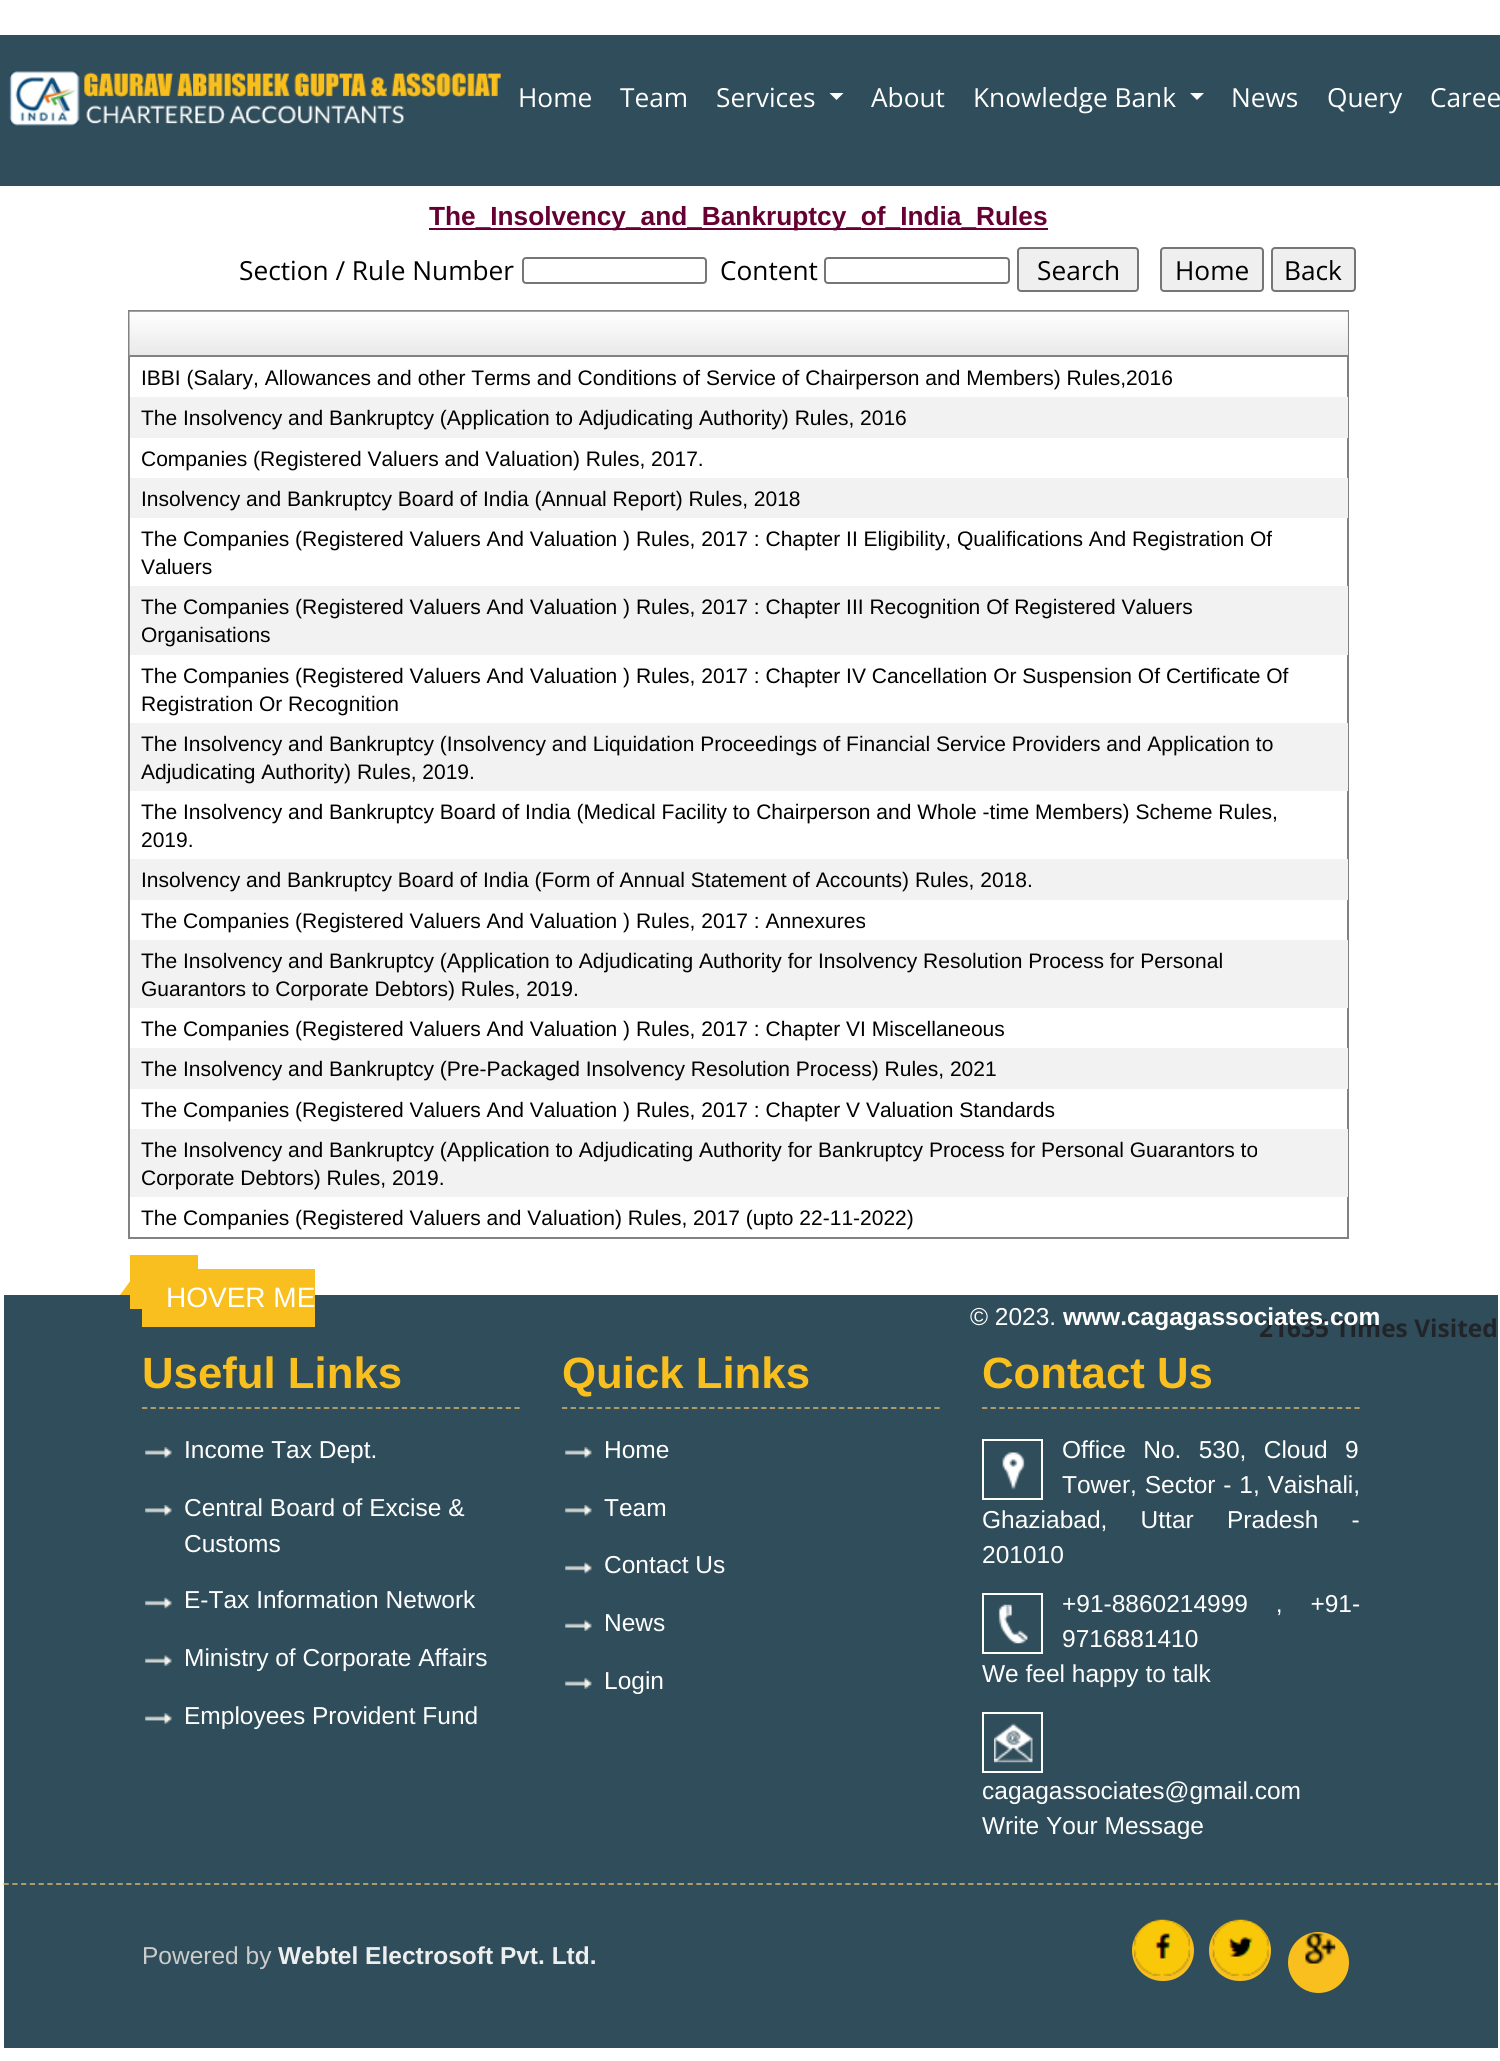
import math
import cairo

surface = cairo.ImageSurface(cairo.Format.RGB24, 1500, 2061)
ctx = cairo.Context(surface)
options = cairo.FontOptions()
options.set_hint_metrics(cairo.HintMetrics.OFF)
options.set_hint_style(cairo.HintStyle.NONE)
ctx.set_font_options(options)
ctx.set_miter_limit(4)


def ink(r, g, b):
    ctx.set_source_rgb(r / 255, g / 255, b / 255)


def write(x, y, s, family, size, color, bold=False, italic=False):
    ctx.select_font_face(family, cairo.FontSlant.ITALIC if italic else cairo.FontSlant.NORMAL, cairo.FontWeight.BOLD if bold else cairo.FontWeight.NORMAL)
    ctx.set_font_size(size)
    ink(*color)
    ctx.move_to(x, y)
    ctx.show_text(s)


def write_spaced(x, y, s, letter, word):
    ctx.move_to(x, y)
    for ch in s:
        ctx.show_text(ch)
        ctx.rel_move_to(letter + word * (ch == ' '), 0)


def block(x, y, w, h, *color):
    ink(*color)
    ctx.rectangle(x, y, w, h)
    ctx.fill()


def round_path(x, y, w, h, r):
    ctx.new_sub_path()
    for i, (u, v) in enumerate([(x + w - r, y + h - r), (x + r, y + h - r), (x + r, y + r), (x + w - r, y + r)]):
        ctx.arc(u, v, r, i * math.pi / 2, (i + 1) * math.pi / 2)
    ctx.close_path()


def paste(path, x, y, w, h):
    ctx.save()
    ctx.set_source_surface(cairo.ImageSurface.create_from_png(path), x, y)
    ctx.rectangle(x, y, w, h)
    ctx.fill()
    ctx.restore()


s1 = dict(family="Open Sans", size=26.25, color=(255, 255, 255))
s2 = dict(family="Liberation Sans", size=26.25, color=(102, 0, 51), bold=True)
s3 = dict(family="Open Sans", size=26.25, color=(0, 0, 0))
s4 = dict(family="Liberation Sans", size=21, color=(0, 0, 0))
s5 = dict(family="Liberation Sans", size=28, color=(255, 255, 255))
s6 = dict(family="Liberation Sans", size=24.5, color=(255, 255, 255))
s7 = dict(family="Open Sans", size=24.5, color=(33, 37, 41), bold=True)
s8 = dict(family="Liberation Sans", size=24.5, color=(255, 255, 255), bold=True)
s9 = dict(family="Liberation Sans", size=43.75, color=(249, 191, 30), bold=True)
s10 = dict(family="Liberation Sans", size=24.5, color=(204, 204, 204))
s11 = dict(family="Liberation Sans", size=24.5, color=(238, 238, 238), bold=True)

ink(255, 255, 255)
ctx.paint()
block(0, 35, 1500, 151, 47, 77, 90)
paste("pic1.png", 9, 71, 492, 55)
write(518, 107, "Home", **s1)
write(620, 107, "Team", **s1)
write(716, 107, "Services", **s1)
ctx.new_path()
ctx.move_to(829.5, 93)
ctx.line_to(843.5, 93)
ctx.line_to(836.5, 100)
ctx.close_path()
ctx.fill()
write(871, 107, "About", **s1)
write(973, 107, "Knowledge Bank", **s1)
ctx.new_path()
ctx.move_to(1190, 93)
ctx.line_to(1204, 93)
ctx.line_to(1197, 100)
ctx.close_path()
ctx.fill()
write(1231, 107, "News", **s1)
write(1327, 107, "Query", **s1)
write(1430, 107, "Caree", **s1)
block(429, 228, 619, 2, 102, 0, 51)
write(429, 225, "The_Insolvency_and_Bankruptcy_of_India_Rules", **s2)
write(239, 280, "Section / Rule Number", **s3)
round_path(523, 258, 183, 25, 3)
ink(118, 118, 118)
ctx.stroke()
write(720, 280, "Content", **s3)
round_path(825, 258, 184, 25, 3)
ink(118, 118, 118)
ctx.stroke()
ink(239, 239, 239)
round_path(1018, 248, 120, 43, 3)
ctx.fill_preserve()
ink(118, 118, 118)
ctx.stroke()
write(1037, 280, "Search", **s3)
ink(239, 239, 239)
round_path(1161, 248, 102, 43, 3)
ctx.fill_preserve()
ink(118, 118, 118)
ctx.stroke()
write(1175, 280, "Home", **s3)
ink(239, 239, 239)
round_path(1272, 248, 83, 43, 3)
ctx.fill_preserve()
ink(118, 118, 118)
ctx.stroke()
write(1284, 280, "Back", **s3)
ctx.rectangle(129, 311, 1219, 927)
ink(130, 130, 130)
ctx.stroke()
block(130, 312, 1218, 43, 234, 234, 234)
paste("pic2.png", 129, 311, 1219, 45)
block(130, 355, 1218, 2, 130, 130, 130)
write(141, 385, "IBBI (Salary, Allowances and other Terms and Conditions of Service of Chairperson and Members) Rules,2016", **s4)
block(130, 397, 1218, 41, 242, 242, 242)
write(141, 425, "The Insolvency and Bankruptcy (Application to Adjudicating Authority) Rules, 2016", **s4)
write(141, 466, "Companies (Registered Valuers and Valuation) Rules, 2017.", **s4)
block(130, 478, 1218, 40, 242, 242, 242)
write(141, 506, "Insolvency and Bankruptcy Board of India (Annual Report) Rules, 2018", **s4)
write(141, 546, "The Companies (Registered Valuers And Valuation ) Rules, 2017 : Chapter II Eligibility, Qualifications And Registration Of", **s4)
write(141, 574, "Valuers", **s4)
block(130, 586, 1218, 69, 242, 242, 242)
write(141, 614, "The Companies (Registered Valuers And Valuation ) Rules, 2017 : Chapter III Recognition Of Registered Valuers", **s4)
write(141, 642, "Organisations", **s4)
write(141, 683, "The Companies (Registered Valuers And Valuation ) Rules, 2017 : Chapter IV Cancellation Or Suspension Of Certificate Of", **s4)
write(141, 711, "Registration Or Recognition", **s4)
block(130, 723, 1218, 68, 242, 242, 242)
write(141, 751, "The Insolvency and Bankruptcy (Insolvency and Liquidation Proceedings of Financial Service Providers and Application to", **s4)
write(141, 779, "Adjudicating Authority) Rules, 2019.", **s4)
write(141, 819, "The Insolvency and Bankruptcy Board of India (Medical Facility to Chairperson and Whole -time Members) Scheme Rules,", **s4)
write(141, 847, "2019.", **s4)
block(130, 859, 1218, 41, 242, 242, 242)
write(141, 887, "Insolvency and Bankruptcy Board of India (Form of Annual Statement of Accounts) Rules, 2018.", **s4)
write(141, 928, "The Companies (Registered Valuers And Valuation ) Rules, 2017 : Annexures", **s4)
block(130, 940, 1218, 68, 242, 242, 242)
write(141, 968, "The Insolvency and Bankruptcy (Application to Adjudicating Authority for Insolvency Resolution Process for Personal", **s4)
write(141, 996, "Guarantors to Corporate Debtors) Rules, 2019.", **s4)
write(141, 1036, "The Companies (Registered Valuers And Valuation ) Rules, 2017 : Chapter VI Miscellaneous", **s4)
block(130, 1048, 1218, 41, 242, 242, 242)
write(141, 1076, "The Insolvency and Bankruptcy (Pre-Packaged Insolvency Resolution Process) Rules, 2021", **s4)
write(141, 1117, "The Companies (Registered Valuers And Valuation ) Rules, 2017 : Chapter V Valuation Standards", **s4)
block(130, 1129, 1218, 68, 242, 242, 242)
write(141, 1157, "The Insolvency and Bankruptcy (Application to Adjudicating Authority for Bankruptcy Process for Personal Guarantors to", **s4)
write(141, 1185, "Corporate Debtors) Rules, 2019.", **s4)
write(141, 1225, "The Companies (Registered Valuers and Valuation) Rules, 2017 (upto 22-11-2022)", **s4)
block(4, 1295, 1494, 753, 47, 77, 90)
block(142, 1269, 173, 58, 249, 191, 30)
block(130, 1255, 68, 54, 249, 191, 30)
ctx.new_path()
ctx.move_to(139, 1269)
ctx.line_to(183, 1269)
ctx.line_to(164, 1295)
ctx.line_to(120, 1295)
ctx.close_path()
ctx.fill()
write(166, 1307, "HOVER ME", **s5)
write(970, 1325, "© 2023.", **s6)
write(1259, 1337, "21635 Times Visited", **s7)
write(1063, 1325, "www.cagagassociates.com", **s8)
ctx.new_path()
ctx.move_to(142, 1408)
ctx.line_to(520, 1408)
ink(186, 164, 106)
ctx.set_line_width(1.8)
ctx.set_dash([5.25, 3.41])
ctx.stroke()
write(142, 1388, "Useful Links", **s9)
paste("pic3.png", 145, 1447, 27, 11)
write(184, 1458, "Income Tax Dept.", **s6)
paste("pic4.png", 145, 1505, 27, 11)
write(184, 1516, "Central Board of Excise &", **s6)
write(184, 1552, "Customs", **s6)
paste("pic5.png", 145, 1597, 27, 12)
write(184, 1608, "E-Tax Information Network", **s6)
paste("pic6.png", 145, 1655, 27, 11)
write(184, 1666, "Ministry of Corporate Affairs", **s6)
paste("pic3.png", 145, 1713, 27, 11)
write(184, 1724, "Employees Provident Fund", **s6)
ctx.new_path()
ctx.move_to(562, 1408)
ctx.line_to(940, 1408)
ink(186, 164, 106)
ctx.stroke()
write(562, 1388, "Quick Links", **s9)
paste("pic3.png", 565, 1447, 27, 11)
write(604, 1458, "Home", **s6)
paste("pic4.png", 565, 1505, 27, 11)
write(604, 1516, "Team", **s6)
paste("pic5.png", 565, 1562, 27, 12)
write(604, 1573, "Contact Us", **s6)
paste("pic6.png", 565, 1620, 27, 11)
write(604, 1631, "News", **s6)
paste("pic3.png", 565, 1678, 27, 11)
write(604, 1689, "Login", **s6)
ctx.new_path()
ctx.move_to(982, 1408)
ctx.line_to(1360, 1408)
ink(186, 164, 106)
ctx.stroke()
write(982, 1388, "Contact Us", **s9)
ctx.rectangle(983, 1440, 59, 59)
ink(255, 255, 255)
ctx.set_line_width(2)
ctx.set_dash([])
ctx.stroke()
paste("pic7.png", 1002, 1452, 23, 38)
ctx.select_font_face("Liberation Sans")
ctx.set_font_size(24.5)
write_spaced(1062, 1458, "Office No. 530, Cloud 9", 0, 10.5)
write_spaced(1062, 1493, "Tower, Sector - 1, Vaishali,", 0, 1)
write_spaced(982, 1528, "Ghaziabad, Uttar Pradesh -", 0, 26.5)
write(982, 1563, "201010", **s6)
ctx.rectangle(983, 1594, 59, 59)
ctx.stroke()
paste("pic8.png", 998, 1604, 30, 40)
write_spaced(1062, 1612, "+91-8860214999 , +91-", 0, 21)
write(1062, 1647, "9716881410", **s6)
write(982, 1682, "We feel happy to talk", **s6)
ctx.rectangle(983, 1713, 59, 59)
ctx.stroke()
paste("pic9.png", 994, 1723, 39, 40)
write(982, 1799, "cagagassociates@gmail.com", **s6)
write(982, 1834, "Write Your Message", **s6)
ctx.new_path()
ctx.move_to(3.5, 1884)
ctx.line_to(1498, 1884)
ink(186, 164, 106)
ctx.set_line_width(1.8)
ctx.set_dash([5.25, 3.52])
ctx.stroke()
write(142, 1964, "Powered by", **s10)
write(278, 1964, "Webtel Electrosoft Pvt. Ltd.", **s11)
ink(249, 191, 30)
round_path(1132, 1920, 62, 61, 30.5)
ctx.fill()
paste("pic10.png", 1134, 1919, 56, 57)
round_path(1209, 1920, 62, 61, 30.5)
ctx.fill()
paste("pic11.png", 1212, 1919, 57, 57)
ctx.arc(1318.5, 1962.5, 30.5, 0, 2 * math.pi)
ctx.fill()
paste("pic12.png", 1305, 1933, 31, 31)
surface.write_to_png("screenshot.png")
